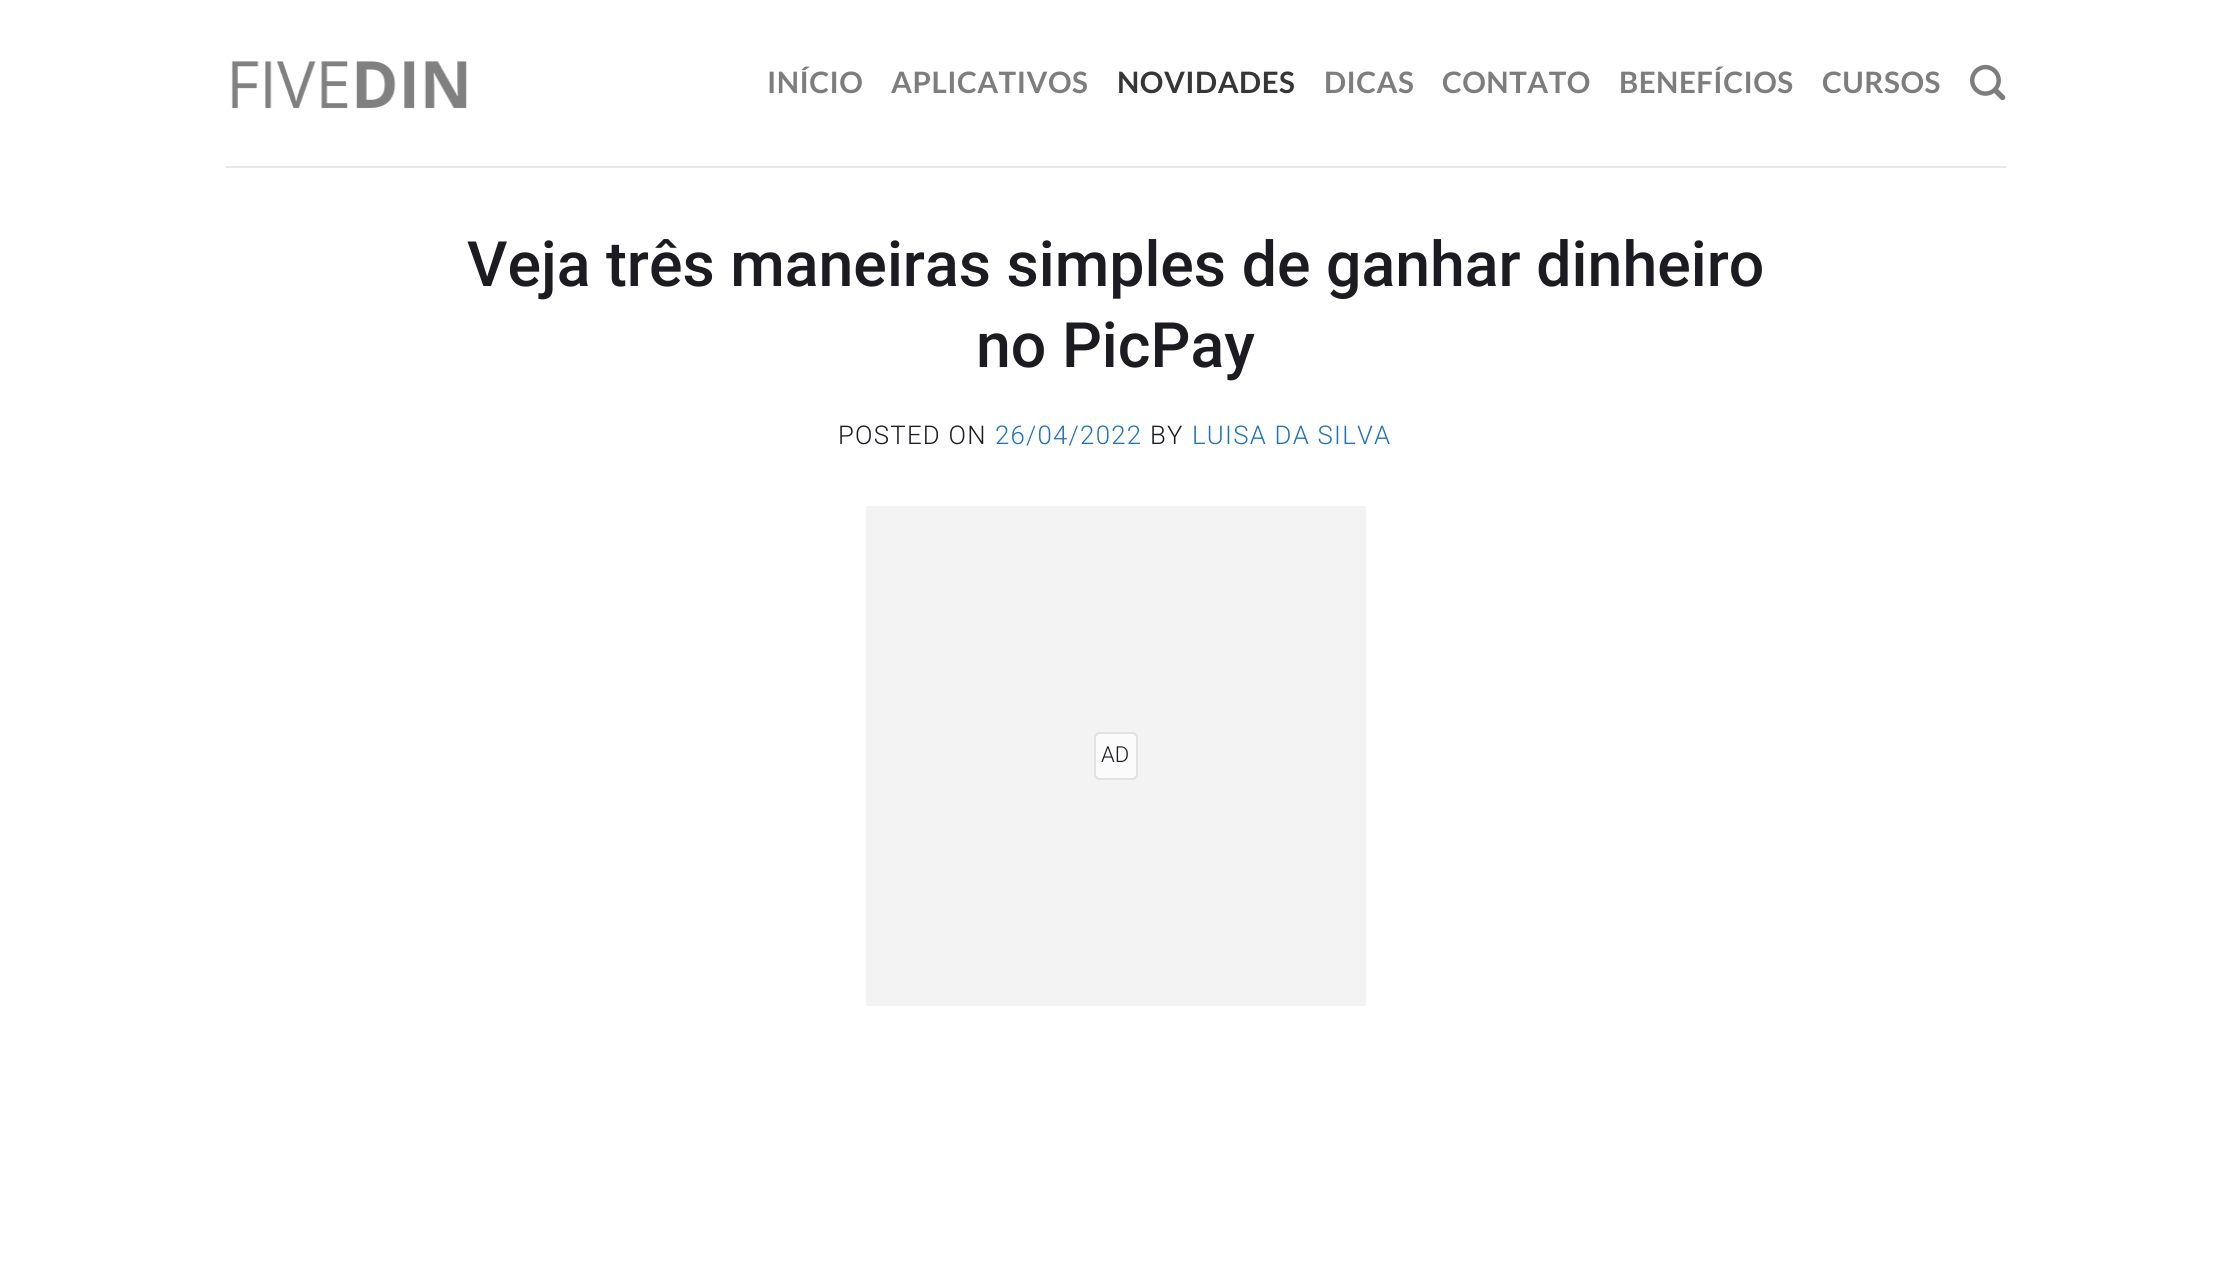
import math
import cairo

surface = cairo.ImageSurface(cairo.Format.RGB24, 2230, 1268)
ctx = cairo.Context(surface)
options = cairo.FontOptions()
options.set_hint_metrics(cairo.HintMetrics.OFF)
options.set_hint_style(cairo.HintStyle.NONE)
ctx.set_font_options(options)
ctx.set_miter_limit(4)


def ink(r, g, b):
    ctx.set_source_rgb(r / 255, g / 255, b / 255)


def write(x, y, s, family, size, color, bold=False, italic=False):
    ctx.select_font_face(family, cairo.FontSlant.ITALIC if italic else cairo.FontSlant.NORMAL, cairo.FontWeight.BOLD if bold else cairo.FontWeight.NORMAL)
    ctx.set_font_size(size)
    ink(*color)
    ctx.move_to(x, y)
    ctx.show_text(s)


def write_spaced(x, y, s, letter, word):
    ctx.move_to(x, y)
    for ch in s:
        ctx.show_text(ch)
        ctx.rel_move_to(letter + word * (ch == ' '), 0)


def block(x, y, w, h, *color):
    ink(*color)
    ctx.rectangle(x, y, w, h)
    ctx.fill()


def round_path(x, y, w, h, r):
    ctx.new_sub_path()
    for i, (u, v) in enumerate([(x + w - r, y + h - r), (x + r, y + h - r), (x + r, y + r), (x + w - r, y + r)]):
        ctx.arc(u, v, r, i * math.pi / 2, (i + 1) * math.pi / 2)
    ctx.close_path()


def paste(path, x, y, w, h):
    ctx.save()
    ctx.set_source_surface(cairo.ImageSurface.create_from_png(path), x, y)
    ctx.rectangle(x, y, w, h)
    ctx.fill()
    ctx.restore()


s1 = dict(family="Roboto Medium", size=62.6, color=(27, 27, 33))
s2 = dict(family="Roboto Light", size=22, color=(27, 27, 33))

ink(255, 255, 255)
ctx.paint()
paste("pic1.png", 231, 61, 236, 48)
ctx.select_font_face("Lato", cairo.FontSlant.NORMAL, cairo.FontWeight.BOLD)
ctx.set_font_size(29.5)
ink(125, 125, 125)
write_spaced(767, 93, "INÍCIO", 0.5, 0)
write_spaced(891, 93, "APLICATIVOS", 0.5, 0)
ink(54, 54, 54)
write_spaced(1117, 93, "NOVIDADES", 0.5, 0)
ink(125, 125, 125)
write_spaced(1324, 93, "DICAS", 0.5, 0)
write_spaced(1442, 93, "CONTATO", 0.5, 0)
write_spaced(1619, 93, "BENEFÍCIOS", 0.5, 0)
write_spaced(1822, 93, "CURSOS", 0.5, 0)
paste("pic2.png", 1970, 64, 36, 37)
block(226, 166, 1780, 2, 232, 232, 233)
write(467, 286, "Veja três maneiras simples de ganhar dinheiro", **s1)
write(976, 367, "no PicPay", **s1)
ctx.select_font_face("Roboto Light")
ctx.set_font_size(25.75)
write_spaced(838, 444, "POSTED ON", 1.25, 0)
ink(30, 114, 189)
write_spaced(995, 444, "26/04/2022", 1.25, 0)
ink(27, 27, 33)
write_spaced(1150, 444, "BY", 1.25, 0)
ink(30, 114, 189)
write_spaced(1192, 444, "LUISA DA SILVA", 1.25, 0)
block(866, 506, 500, 500, 243, 243, 243)
ink(251, 251, 251)
round_path(1095, 733, 42, 46, 5)
ctx.fill_preserve()
ink(226, 226, 226)
ctx.stroke()
write(1101, 762, "AD", **s2)
surface.write_to_png("screenshot.png")
